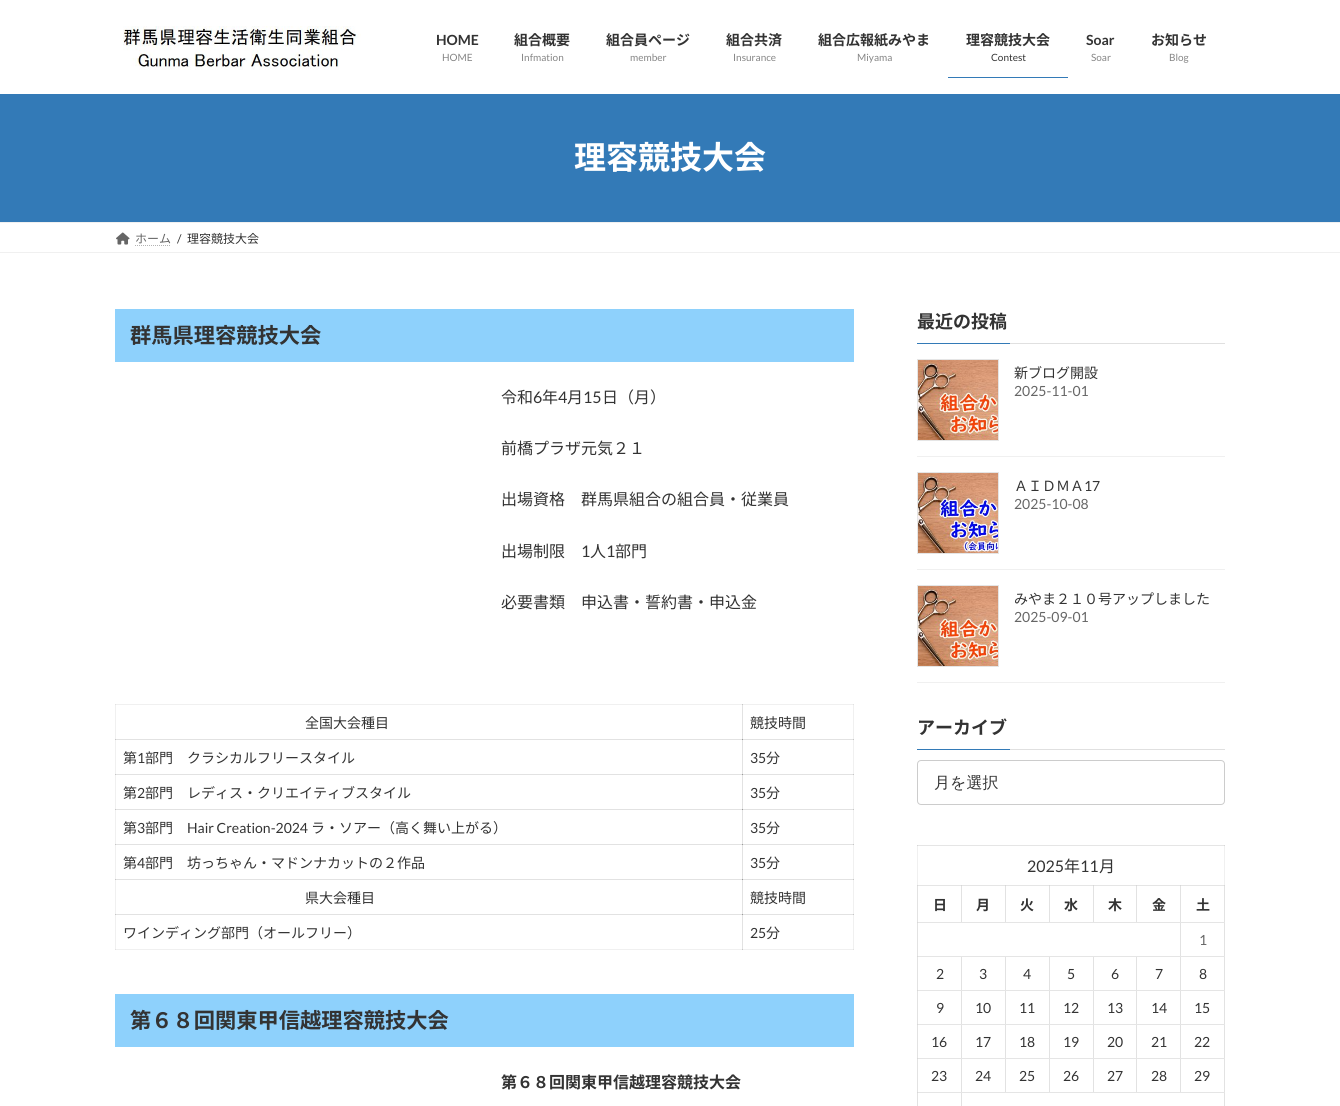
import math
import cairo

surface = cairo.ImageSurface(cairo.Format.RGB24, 1340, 1106)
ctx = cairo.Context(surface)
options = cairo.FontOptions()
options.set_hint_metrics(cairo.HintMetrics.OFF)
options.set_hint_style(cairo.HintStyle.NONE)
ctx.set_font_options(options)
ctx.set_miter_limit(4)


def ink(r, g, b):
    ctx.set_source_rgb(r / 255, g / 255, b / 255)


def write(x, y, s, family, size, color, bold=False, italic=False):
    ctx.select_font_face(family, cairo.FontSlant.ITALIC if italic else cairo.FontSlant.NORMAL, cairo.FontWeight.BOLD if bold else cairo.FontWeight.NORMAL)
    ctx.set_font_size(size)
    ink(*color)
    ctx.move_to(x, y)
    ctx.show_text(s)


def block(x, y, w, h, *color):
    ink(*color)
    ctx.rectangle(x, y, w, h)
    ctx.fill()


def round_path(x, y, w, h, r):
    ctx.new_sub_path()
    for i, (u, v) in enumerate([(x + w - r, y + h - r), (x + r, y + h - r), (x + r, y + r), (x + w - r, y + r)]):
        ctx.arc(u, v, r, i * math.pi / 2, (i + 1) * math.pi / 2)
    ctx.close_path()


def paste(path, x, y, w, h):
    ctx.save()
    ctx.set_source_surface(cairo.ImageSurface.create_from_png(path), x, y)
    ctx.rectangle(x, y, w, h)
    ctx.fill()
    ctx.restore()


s1 = dict(family="Lato", size=14, color=(51, 51, 51), bold=True)
s2 = dict(family="Lato", size=10, color=(133, 133, 133))
s3 = dict(family="Noto Sans JP", size=14, color=(51, 51, 51), bold=True)
s4 = dict(family="Lato", size=10, color=(51, 51, 51))
s5 = dict(family="Noto Sans JP", size=32, color=(255, 255, 255), bold=True)
s6 = dict(family="Noto Sans JP", size=12, color=(102, 102, 102))
s7 = dict(family="Lato", size=12, color=(51, 51, 51))
s8 = dict(family="Noto Sans JP", size=12, color=(51, 51, 51))
s9 = dict(family="Noto Sans JP", size=21.25, color=(51, 51, 51), bold=True)
s10 = dict(family="Noto Sans JP", size=16, color=(51, 51, 51))
s11 = dict(family="Lato", size=16, color=(51, 51, 51))
s12 = dict(family="Noto Sans JP", size=14, color=(51, 51, 51))
s13 = dict(family="Lato", size=14, color=(51, 51, 51))
s14 = dict(family="Noto Sans JP", size=16, color=(51, 51, 51), bold=True)
s15 = dict(family="Noto Sans JP", size=18, color=(51, 51, 51), bold=True)
s16 = dict(family="Lato", size=14, color=(102, 102, 102))
s17 = dict(family="WenQuanYi Zen Hei Medium", size=16, color=(51, 51, 51))

ink(255, 255, 255)
ctx.paint()
block(961, 885, 1, 38, 226, 226, 226)
block(1005, 885, 1, 38, 226, 226, 226)
block(1049, 885, 1, 38, 226, 226, 226)
block(1093, 885, 1, 38, 226, 226, 226)
block(1136, 885, 1, 38, 226, 226, 226)
block(1180, 885, 1, 208, 226, 226, 226)
block(961, 956, 1, 150, 226, 226, 226)
block(1005, 956, 1, 137, 226, 226, 226)
block(1049, 956, 1, 137, 226, 226, 226)
block(1093, 956, 1, 137, 226, 226, 226)
block(1136, 956, 1, 137, 226, 226, 226)
block(917, 845, 1, 40, 240, 240, 240)
block(917, 885, 1, 221, 226, 226, 226)
block(1224, 845, 1, 40, 240, 240, 240)
block(1224, 885, 1, 221, 226, 226, 226)
block(115, 704, 1, 246, 240, 240, 240)
block(115, 704, 628, 1, 240, 240, 240)
block(115, 704, 1, 1, 226, 226, 226)
block(742, 704, 1, 36, 226, 226, 226)
block(853, 704, 1, 211, 240, 240, 240)
block(115, 739, 628, 1, 226, 226, 226)
block(115, 739, 1, 1, 199, 199, 199)
block(742, 739, 1, 36, 226, 226, 226)
block(115, 774, 628, 1, 226, 226, 226)
block(115, 774, 1, 1, 199, 199, 199)
block(742, 774, 1, 36, 226, 226, 226)
block(115, 809, 628, 1, 226, 226, 226)
block(115, 809, 1, 1, 199, 199, 199)
block(742, 809, 1, 36, 226, 226, 226)
block(115, 844, 628, 1, 226, 226, 226)
block(115, 844, 1, 1, 199, 199, 199)
block(742, 844, 1, 36, 226, 226, 226)
block(115, 879, 628, 1, 226, 226, 226)
block(115, 879, 1, 1, 199, 199, 199)
block(742, 879, 1, 36, 226, 226, 226)
block(115, 949, 628, 1, 240, 240, 240)
block(115, 949, 1, 1, 226, 226, 226)
block(115, 914, 628, 1, 226, 226, 226)
block(115, 914, 1, 1, 199, 199, 199)
block(742, 914, 1, 36, 226, 226, 226)
block(742, 949, 112, 1, 240, 240, 240)
block(742, 949, 1, 1, 199, 199, 199)
block(853, 914, 1, 36, 240, 240, 240)
block(853, 949, 1, 1, 226, 226, 226)
paste("pic1.png", 123, 26, 238, 44)
write(436, 45, "HOME", **s1)
write(442, 61, "HOME", **s2)
write(514, 45, "組合概要", **s3)
write(521, 61, "Infmation", **s2)
write(606, 45, "組合員ページ", **s3)
write(630, 61, "member", **s2)
write(726, 45, "組合共済", **s3)
write(733, 61, "Insurance", **s2)
write(818, 45, "組合広報紙みやま", **s3)
write(857, 61, "Miyama", **s2)
write(966, 45, "理容競技大会", **s3)
write(991, 61, "Contest", **s4)
block(948, 77, 120, 1, 51, 122, 183)
write(1086, 45, "Soar", **s1)
write(1091, 61, "Soar", **s2)
write(1151, 45, "お知らせ", **s3)
write(1169, 61, "Blog", **s2)
block(0, 94, 1340, 128, 51, 122, 183)
write(574, 169, "理容競技大会", **s5)
block(0, 222, 1340, 1, 240, 240, 240)
block(0, 252, 1340, 1, 240, 240, 240)
paste("pic2.png", 116, 232, 14, 13)
write(135, 243, "ホーム", **s6)
ctx.new_path()
ctx.move_to(135, 245.5)
ctx.line_to(171, 245.5)
ink(179, 179, 179)
ctx.set_line_width(1)
ctx.set_dash([1, 1])
ctx.stroke()
write(177, 243, "/", **s7)
write(187, 243, "理容競技大会", **s8)
block(115, 309, 739, 53, 142, 209, 252)
write(130, 343, "群馬県理容競技大会", **s9)
write(501, 403, "令和", **s10)
write(533, 403, "6", **s11)
write(542, 403, "年", **s10)
write(558, 403, "4", **s11)
write(567, 403, "月", **s10)
write(583, 403, "15", **s11)
write(602, 403, "日（月）", **s10)
write(501, 454, "前橋プラザ元気２１", **s10)
write(501, 505, "出場資格　群馬県組合の組合員・従業員", **s10)
write(501, 557, "出場制限", **s10)
write(581, 557, "1", **s11)
write(590, 557, "人", **s10)
write(606, 557, "1", **s11)
write(615, 557, "部門", **s10)
write(501, 608, "必要書類　申込書・誓約書・申込金", **s10)
write(305, 728, "全国大会種目", **s12)
block(742, 704, 112, 1, 240, 240, 240)
block(742, 704, 1, 1, 199, 199, 199)
block(853, 704, 1, 1, 226, 226, 226)
write(750, 728, "競技時間", **s12)
write(123, 763, "第", **s12)
write(137, 763, "1", **s13)
write(145, 763, "部門　クラシカルフリースタイル", **s12)
block(742, 739, 112, 1, 226, 226, 226)
block(742, 739, 1, 1, 155, 155, 155)
block(853, 739, 1, 1, 199, 199, 199)
write(750, 763, "35", **s13)
write(766, 763, "分", **s12)
write(123, 798, "第", **s12)
write(137, 798, "2", **s13)
write(145, 798, "部門　レディス・クリエイティブスタイル", **s12)
block(742, 774, 112, 1, 226, 226, 226)
block(742, 774, 1, 1, 155, 155, 155)
block(853, 774, 1, 1, 199, 199, 199)
write(750, 798, "35", **s13)
write(766, 798, "分", **s12)
write(123, 833, "第", **s12)
write(137, 833, "3", **s13)
write(145, 833, "部門", **s12)
write(187, 833, "Hair Creation-2024", **s13)
write(311, 833, "ラ・ソアー（高く舞い上がる）", **s12)
block(742, 809, 112, 1, 226, 226, 226)
block(742, 809, 1, 1, 155, 155, 155)
block(853, 809, 1, 1, 199, 199, 199)
write(750, 833, "35", **s13)
write(766, 833, "分", **s12)
write(123, 868, "第", **s12)
write(137, 868, "4", **s13)
write(145, 868, "部門　坊っちゃん・マドンナカットの２作品", **s12)
block(742, 844, 112, 1, 226, 226, 226)
block(742, 844, 1, 1, 155, 155, 155)
block(853, 844, 1, 1, 199, 199, 199)
write(750, 868, "35", **s13)
write(766, 868, "分", **s12)
write(305, 903, "県大会種目", **s12)
block(742, 879, 112, 1, 226, 226, 226)
block(742, 879, 1, 1, 155, 155, 155)
block(853, 879, 1, 1, 199, 199, 199)
write(750, 903, "競技時間", **s12)
write(123, 938, "ワインディング部門（オールフリー）", **s12)
block(742, 914, 112, 1, 226, 226, 226)
block(742, 914, 1, 1, 155, 155, 155)
block(853, 914, 1, 1, 199, 199, 199)
write(750, 938, "25", **s13)
write(766, 938, "分", **s12)
block(115, 994, 739, 53, 142, 209, 252)
write(130, 1028, "第６８回関東甲信越理容競技大会", **s9)
write(501, 1088, "第６８回関東甲信越理容競技大会", **s14)
block(1010, 343, 215, 1, 224, 224, 224)
write(917, 328, "最近の投稿", **s15)
block(917, 343, 93, 1, 51, 122, 183)
block(917, 456, 308, 1, 240, 240, 240)
ctx.rectangle(917.5, 359.5, 81, 81)
ink(229, 229, 229)
ctx.set_dash([])
ctx.stroke()
paste("pic3.png", 918, 360, 80, 80)
write(1014, 378, "新ブログ開設", **s12)
write(1014, 396, "2025-11-01", **s16)
block(917, 569, 308, 1, 240, 240, 240)
ctx.rectangle(917.5, 472.5, 81, 81)
ink(229, 229, 229)
ctx.stroke()
paste("pic4.png", 918, 473, 80, 80)
write(1014, 491, "ＡＩＤＭＡ", **s12)
write(1084, 491, "17", **s13)
write(1014, 509, "2025-10-08", **s16)
block(917, 682, 308, 1, 240, 240, 240)
ctx.rectangle(917.5, 585.5, 81, 81)
ink(229, 229, 229)
ctx.stroke()
paste("pic5.png", 918, 586, 80, 80)
write(1014, 604, "みやま２１０号アップしました", **s12)
write(1014, 622, "2025-09-01", **s16)
block(1010, 749, 215, 1, 224, 224, 224)
write(917, 734, "アーカイブ", **s15)
block(917, 749, 93, 1, 51, 122, 183)
round_path(917.5, 760.5, 307, 44, 3.5)
ink(204, 204, 204)
ctx.stroke()
write(934, 788, "月を選択", **s17)
block(917, 845, 308, 1, 229, 229, 229)
block(917, 845, 1, 1, 215, 215, 215)
block(1224, 845, 1, 1, 215, 215, 215)
write(1027, 872, "2025", **s11)
write(1064, 872, "年", **s10)
write(1080, 872, "11", **s11)
write(1099, 872, "月", **s10)
block(917, 885, 308, 1, 229, 229, 229)
block(917, 885, 1, 1, 215, 215, 215)
block(961, 885, 1, 1, 215, 215, 215)
block(917, 922, 308, 1, 229, 229, 229)
block(917, 922, 1, 1, 215, 215, 215)
write(933, 910, "日", **s3)
block(1005, 885, 1, 1, 215, 215, 215)
write(976, 910, "月", **s3)
block(1049, 885, 1, 1, 215, 215, 215)
write(1020, 910, "火", **s3)
block(1093, 885, 1, 1, 215, 215, 215)
write(1064, 910, "水", **s3)
block(1136, 885, 1, 1, 215, 215, 215)
write(1108, 910, "木", **s3)
block(1180, 885, 1, 1, 215, 215, 215)
write(1152, 910, "金", **s3)
block(1224, 885, 1, 1, 215, 215, 215)
write(1196, 910, "土", **s3)
block(917, 956, 308, 1, 229, 229, 229)
write(1199, 945, "1", **s16)
block(917, 956, 1, 1, 215, 215, 215)
block(917, 990, 308, 1, 229, 229, 229)
block(917, 990, 1, 1, 215, 215, 215)
write(936, 979, "2", **s13)
write(979, 979, "3", **s13)
write(1023, 979, "4", **s13)
write(1067, 979, "5", **s13)
write(1111, 979, "6", **s13)
write(1155, 979, "7", **s13)
write(1199, 979, "8", **s13)
block(917, 1024, 308, 1, 229, 229, 229)
block(917, 1024, 1, 1, 215, 215, 215)
write(936, 1013, "9", **s13)
write(975, 1013, "10", **s13)
write(1019, 1013, "11", **s13)
write(1063, 1013, "12", **s13)
write(1107, 1013, "13", **s13)
write(1151, 1013, "14", **s13)
write(1194, 1013, "15", **s13)
block(917, 1058, 308, 1, 229, 229, 229)
block(917, 1058, 1, 1, 215, 215, 215)
write(931, 1047, "16", **s13)
write(975, 1047, "17", **s13)
write(1019, 1047, "18", **s13)
write(1063, 1047, "19", **s13)
write(1107, 1047, "20", **s13)
write(1151, 1047, "21", **s13)
write(1194, 1047, "22", **s13)
block(917, 1092, 308, 1, 229, 229, 229)
block(917, 1092, 1, 1, 215, 215, 215)
write(931, 1081, "23", **s13)
write(975, 1081, "24", **s13)
write(1019, 1081, "25", **s13)
write(1063, 1081, "26", **s13)
write(1107, 1081, "27", **s13)
write(1151, 1081, "28", **s13)
write(1194, 1081, "29", **s13)
surface.write_to_png("screenshot.png")
